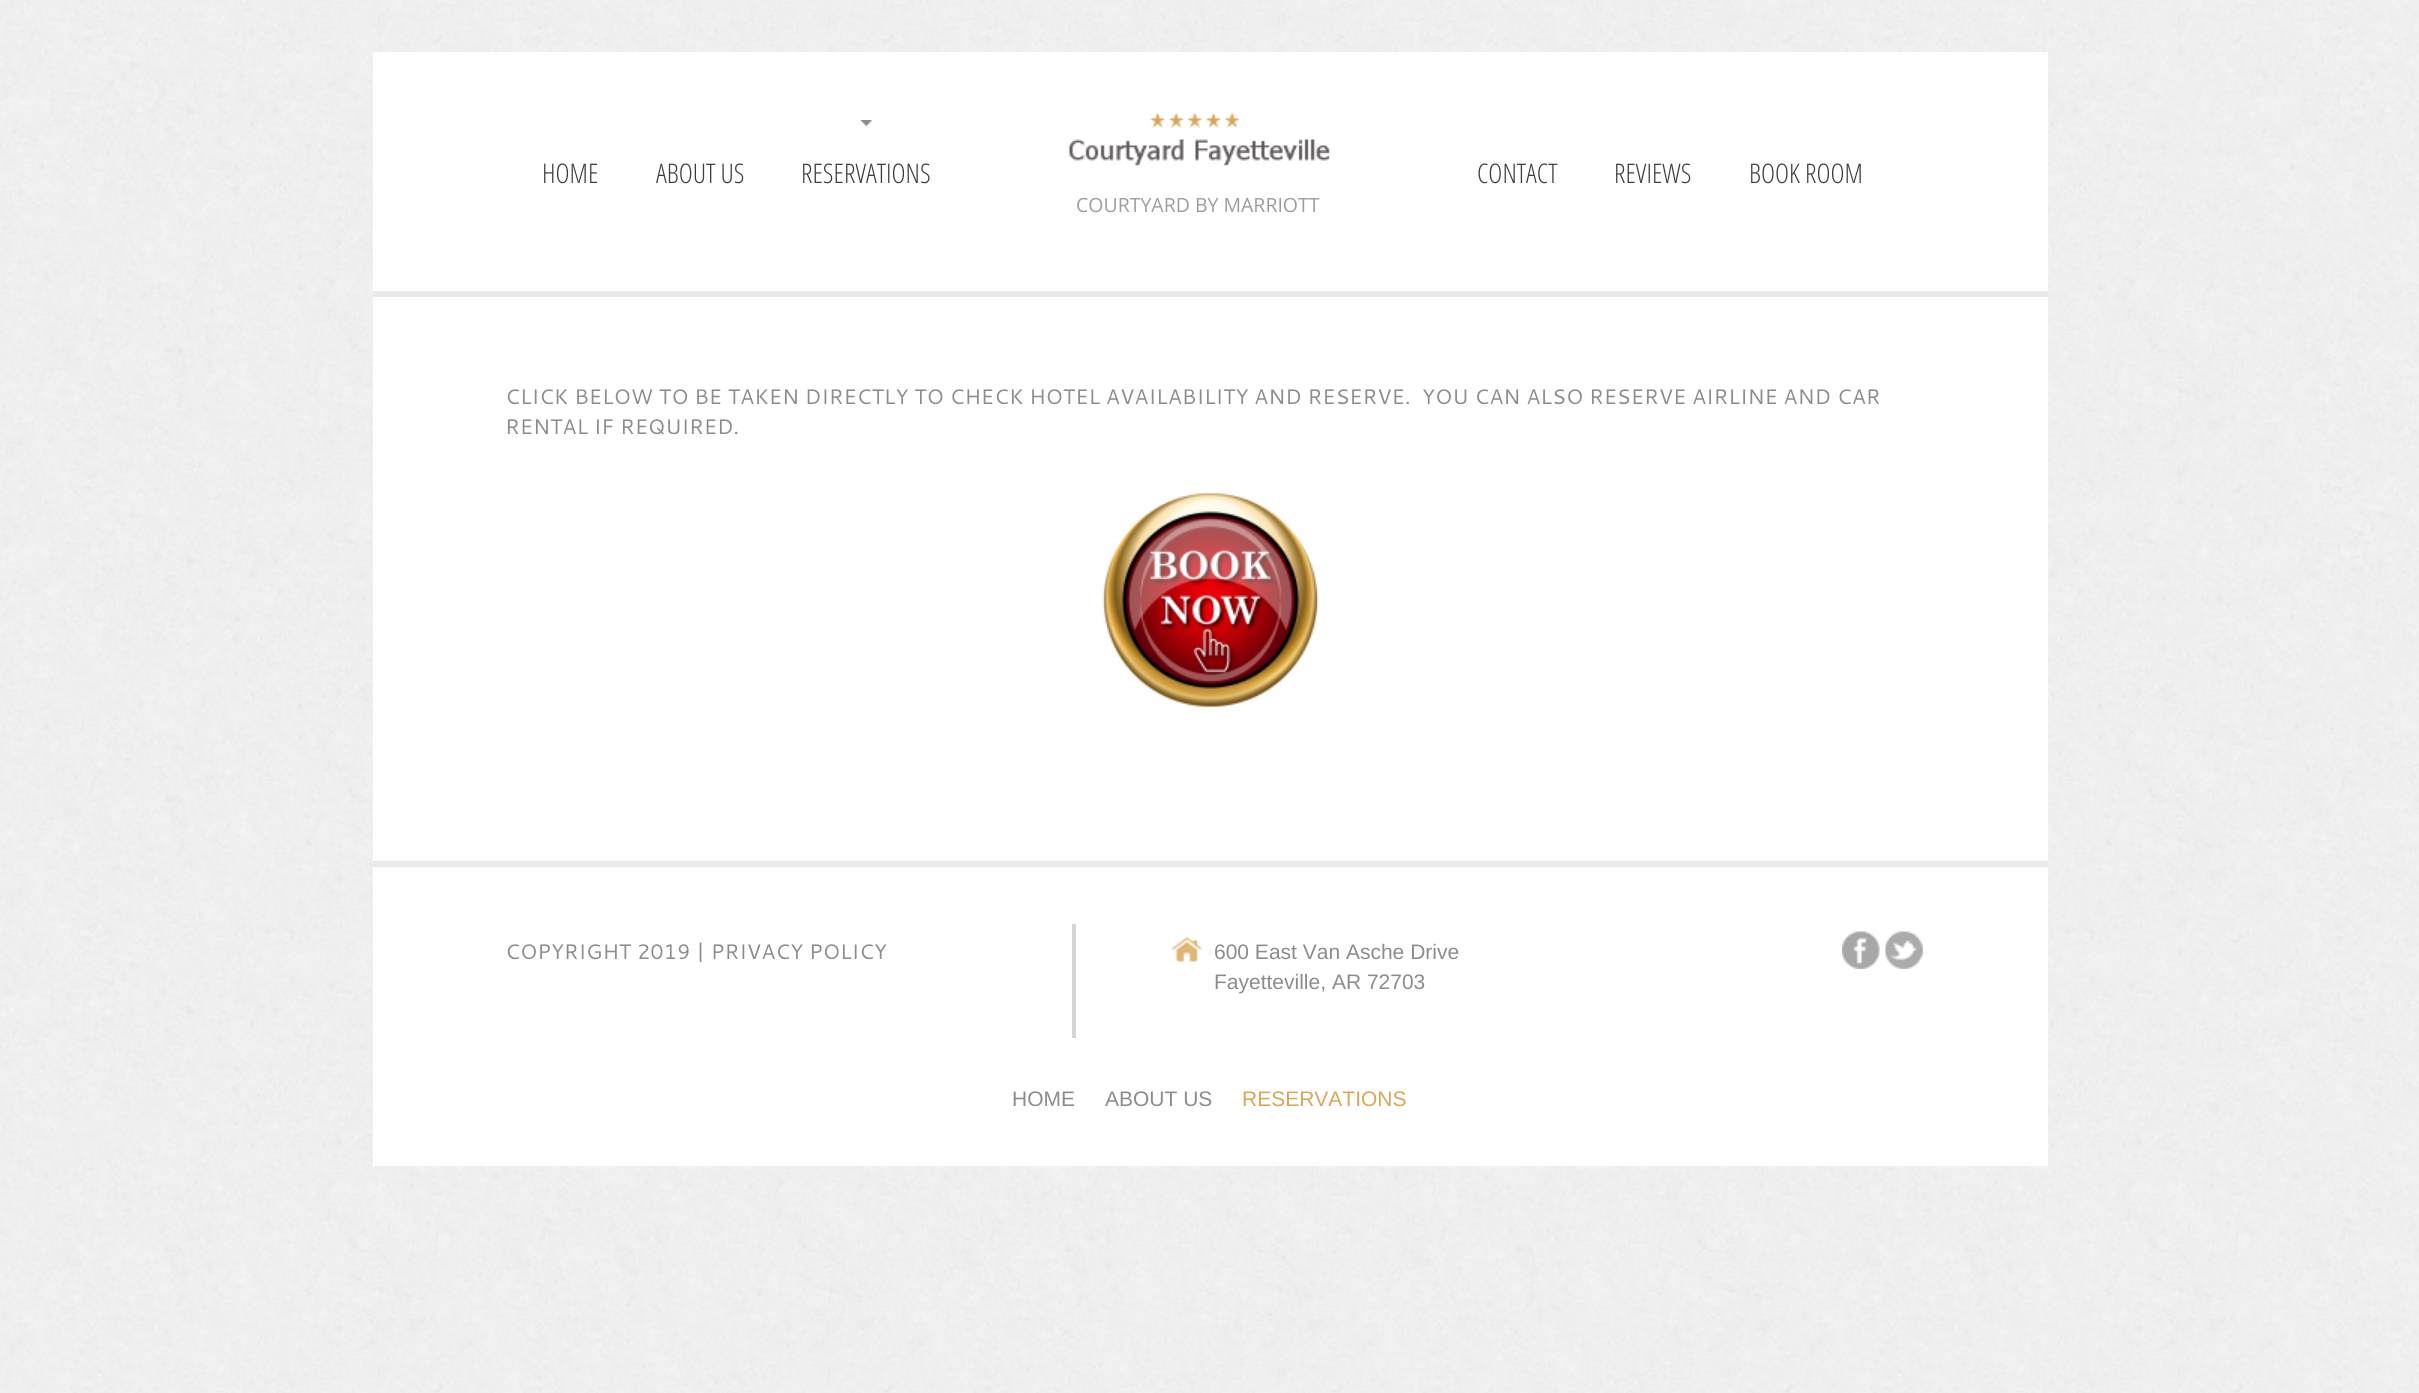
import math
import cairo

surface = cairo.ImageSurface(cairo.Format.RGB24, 2419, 1393)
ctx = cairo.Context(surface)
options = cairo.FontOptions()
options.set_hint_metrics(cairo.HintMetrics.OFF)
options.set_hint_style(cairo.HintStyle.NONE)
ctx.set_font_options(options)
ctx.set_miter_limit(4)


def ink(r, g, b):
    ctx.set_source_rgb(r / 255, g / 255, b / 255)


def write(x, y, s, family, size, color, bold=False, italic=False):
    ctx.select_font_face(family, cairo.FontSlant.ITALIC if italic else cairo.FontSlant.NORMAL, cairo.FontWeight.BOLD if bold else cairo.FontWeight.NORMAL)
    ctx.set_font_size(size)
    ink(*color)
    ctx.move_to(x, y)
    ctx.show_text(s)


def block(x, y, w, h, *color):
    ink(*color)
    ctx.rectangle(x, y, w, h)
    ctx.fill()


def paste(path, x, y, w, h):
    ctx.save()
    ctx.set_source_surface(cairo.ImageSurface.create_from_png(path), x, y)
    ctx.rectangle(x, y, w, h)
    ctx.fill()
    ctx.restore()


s1 = dict(family="Open Sans Condensed Light", size=27, color=(61, 61, 61))
s2 = dict(family="Open Sans", size=19.5, color=(157, 157, 157))
s3 = dict(family="Cantarell", size=21, color=(140, 140, 140))
s4 = dict(family="Liberation Sans", size=21, color=(140, 140, 140))
s5 = dict(family="Liberation Sans", size=21, color=(217, 166, 88))

ink(255, 255, 255)
ctx.paint()
paste("pic1.png", 0, 0, 2419, 1393)
block(373, 52, 1675, 239, 255, 255, 255)
write(542, 183, "HOME", **s1)
write(656, 183, "ABOUT US", **s1)
paste("pic2.png", 861, 120, 11, 6)
write(801, 183, "RESERVATIONS", **s1)
write(1477, 183, "CONTACT", **s1)
write(1614, 183, "REVIEWS", **s1)
write(1749, 183, "BOOK ROOM", **s1)
paste("pic3.png", 1068, 112, 262, 54)
write(1076, 212, "COURTYARD BY MARRIOTT", **s2)
block(373, 297, 1675, 564, 255, 255, 255)
block(373, 291, 1675, 6, 233, 233, 233)
write(505, 404, "CLICK BELOW TO BE TAKEN DIRECTLY TO CHECK HOTEL AVAILABILITY AND RESERVE.  YOU CAN ALSO RESERVE AIRLINE AND CAR", **s3)
write(505, 434, "RENTAL IF REQUIRED.", **s3)
paste("pic4.png", 1102, 492, 217, 217)
block(373, 861, 1675, 6, 233, 233, 233)
block(373, 867, 1675, 299, 255, 255, 255)
write(505, 959, "COPYRIGHT 2019 | PRIVACY POLICY", **s3)
block(1072, 924, 4, 114, 213, 213, 213)
paste("pic5.png", 1171, 937, 31, 25)
write(1214, 959, "600 East Van Asche Drive", **s4)
write(1214, 989, "Fayetteville, AR 72703", **s4)
paste("pic6.png", 1842, 931, 38, 38)
paste("pic7.png", 1885, 931, 38, 38)
write(1012, 1106, "HOME", **s4)
write(1105, 1106, "ABOUT US", **s4)
write(1242, 1106, "RESERVATIONS", **s5)
surface.write_to_png("screenshot.png")
